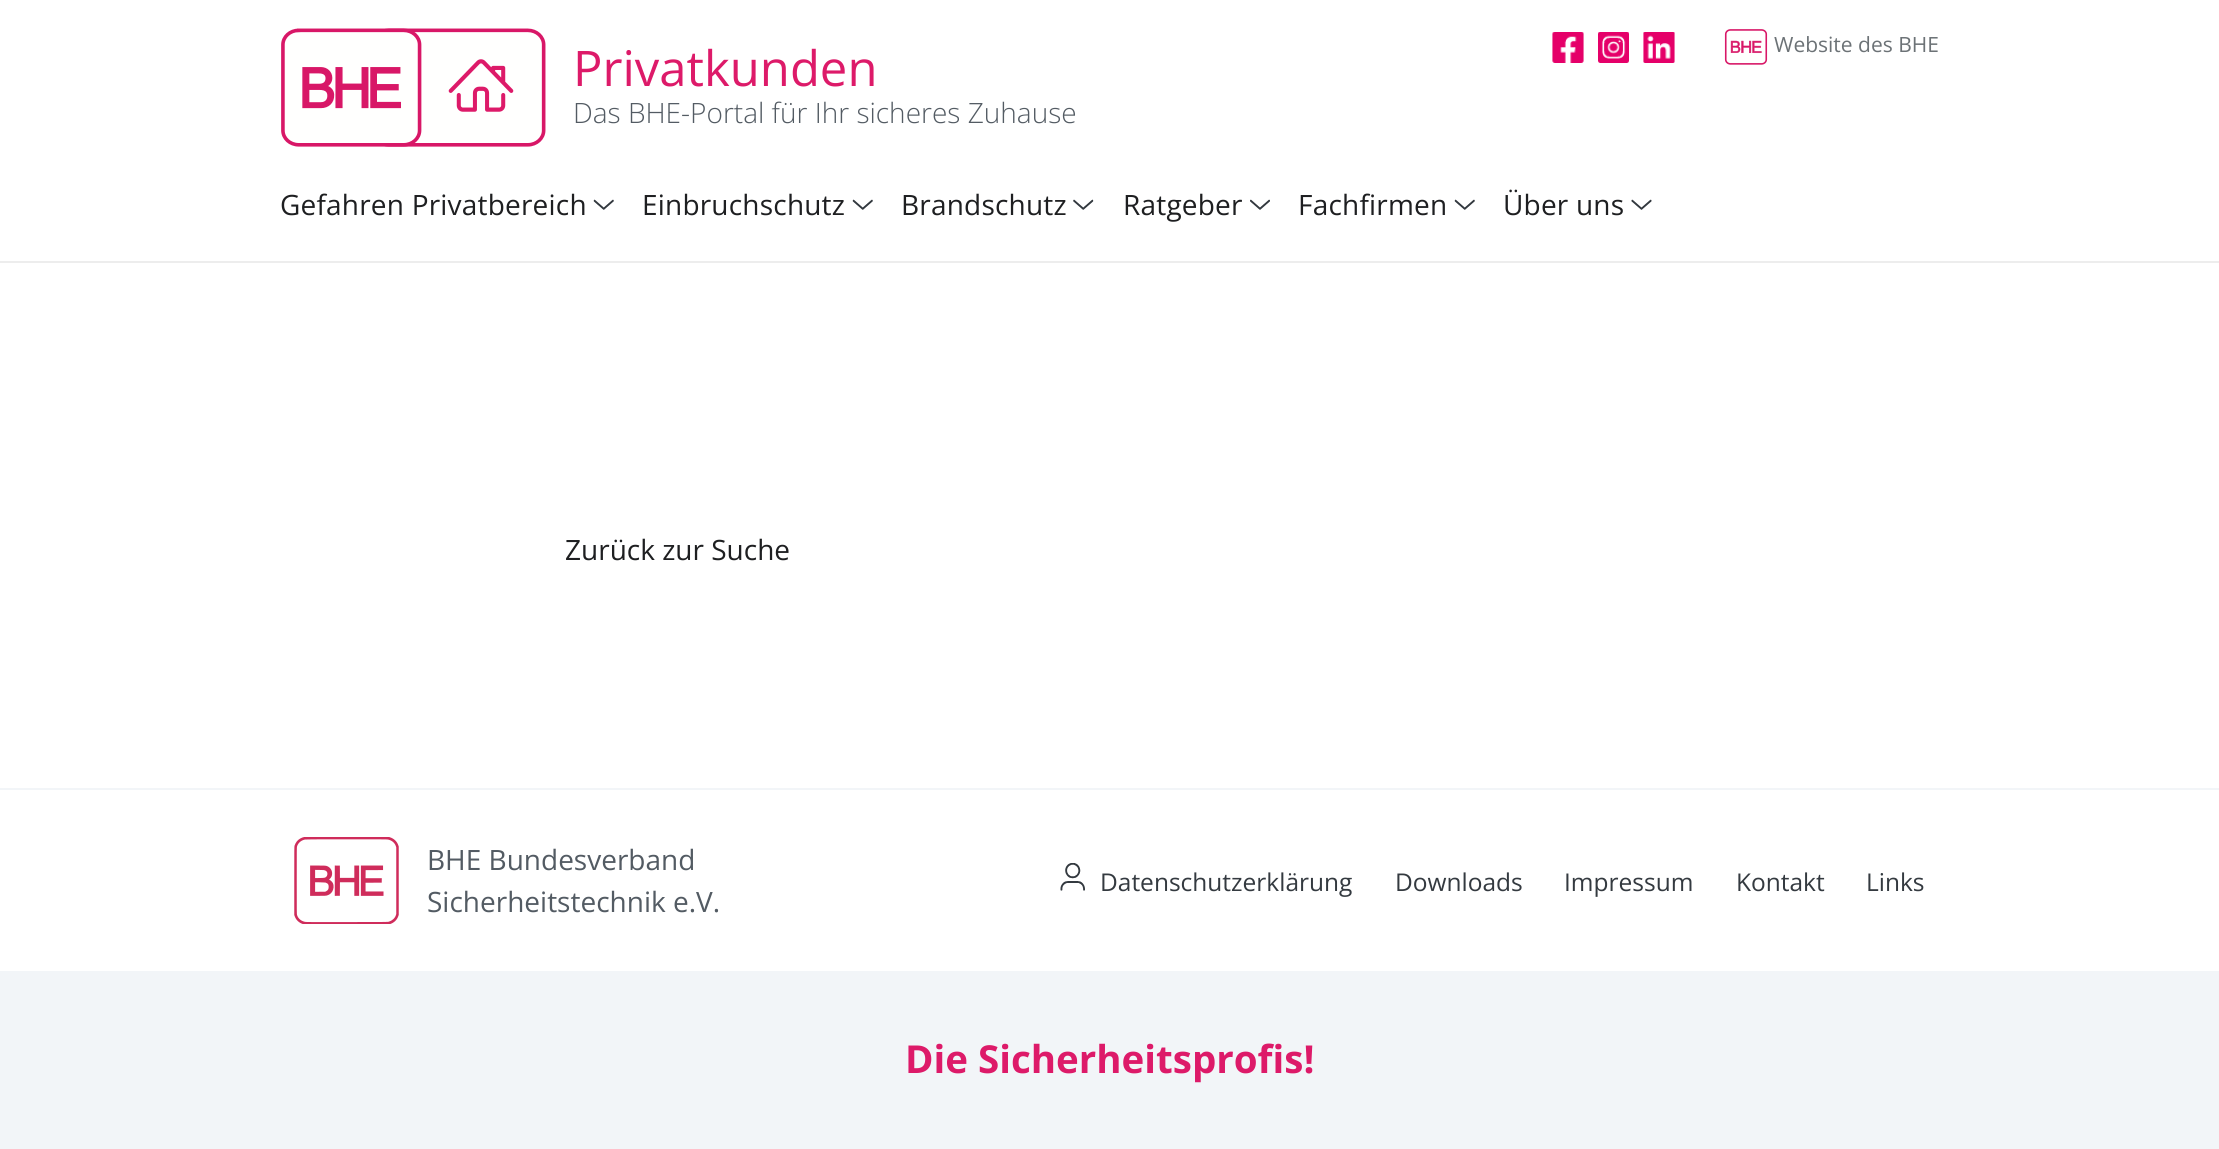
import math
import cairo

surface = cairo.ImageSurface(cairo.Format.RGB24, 2219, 1149)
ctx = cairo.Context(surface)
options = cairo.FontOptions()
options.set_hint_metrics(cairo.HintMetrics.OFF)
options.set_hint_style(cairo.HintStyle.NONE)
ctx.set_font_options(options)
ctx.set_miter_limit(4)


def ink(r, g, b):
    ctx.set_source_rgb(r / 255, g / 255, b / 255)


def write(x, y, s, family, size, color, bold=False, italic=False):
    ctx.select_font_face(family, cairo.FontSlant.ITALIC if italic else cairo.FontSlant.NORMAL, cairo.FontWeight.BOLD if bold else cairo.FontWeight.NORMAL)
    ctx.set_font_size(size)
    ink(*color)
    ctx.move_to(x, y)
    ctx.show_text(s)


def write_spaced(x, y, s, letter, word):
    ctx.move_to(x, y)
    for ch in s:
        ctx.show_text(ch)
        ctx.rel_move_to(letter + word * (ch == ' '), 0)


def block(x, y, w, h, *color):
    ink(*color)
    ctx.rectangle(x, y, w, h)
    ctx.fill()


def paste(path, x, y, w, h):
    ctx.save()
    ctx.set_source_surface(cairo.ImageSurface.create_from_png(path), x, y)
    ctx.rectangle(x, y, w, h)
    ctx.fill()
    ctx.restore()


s1 = dict(family="Open Sans", size=21, color=(108, 114, 118))
s2 = dict(family="Open Sans", size=49, color=(221, 26, 105))
s3 = dict(family="Open Sans Light", size=28, color=(83, 91, 99))
s4 = dict(family="Open Sans", size=28, color=(30, 31, 33))
s5 = dict(family="Open Sans", size=28, color=(83, 91, 99))
s6 = dict(family="Open Sans", size=24.5, color=(52, 58, 64))
s7 = dict(family="Open Sans", size=38.5, color=(221, 26, 105), bold=True)

ink(255, 255, 255)
ctx.paint()
block(0, 261, 2219, 2, 237, 237, 237)
paste("pic1.png", 1552, 32, 32, 31)
paste("pic2.png", 1598, 32, 31, 31)
paste("pic3.png", 1643, 32, 32, 31)
paste("pic4.png", 1724, 29, 44, 36)
write(1774, 52, "Website des BHE", **s1)
paste("pic5.png", 281, 28, 265, 119)
write(573, 86, "Privatkunden", **s2)
write(573, 123, "Das BHE-Portal für Ihr sicheres Zuhause", **s3)
ctx.select_font_face("Open Sans")
ink(30, 31, 33)
write_spaced(280, 215, "Gefahren Privatbereich", 0.2, 0)
paste("pic6.png", 593, 199, 21, 11)
write_spaced(642, 215, "Einbruchschutz", 0.2, 0)
paste("pic6.png", 852, 199, 21, 11)
write_spaced(901, 215, "Brandschutz", 0.2, 0)
paste("pic7.png", 1073, 199, 21, 11)
write_spaced(1123, 215, "Ratgeber", 0.2, 0)
paste("pic8.png", 1250, 199, 20, 11)
write_spaced(1298, 215, "Fachfirmen", 0.2, 0)
paste("pic6.png", 1454, 199, 21, 11)
write_spaced(1503, 215, "Über uns", 0.2, 0)
paste("pic9.png", 1631, 199, 21, 11)
write(565, 560, "Zurück zur Suche", **s4)
block(0, 788, 2219, 2, 242, 245, 248)
block(0, 971, 2219, 178, 242, 245, 248)
paste("pic10.png", 294, 837, 105, 87)
write(427, 870, "BHE Bundesverband", **s5)
write(427, 912, "Sicherheitstechnik e.V.", **s5)
paste("pic11.png", 1060, 863, 25, 28)
write(1100, 891, "Datenschutzerklärung", **s6)
write(1395, 891, "Downloads", **s6)
write(1564, 891, "Impressum", **s6)
write(1736, 891, "Kontakt", **s6)
write(1866, 891, "Links", **s6)
write(905, 1073, "Die Sicherheitsprofis!", **s7)
surface.write_to_png("screenshot.png")
